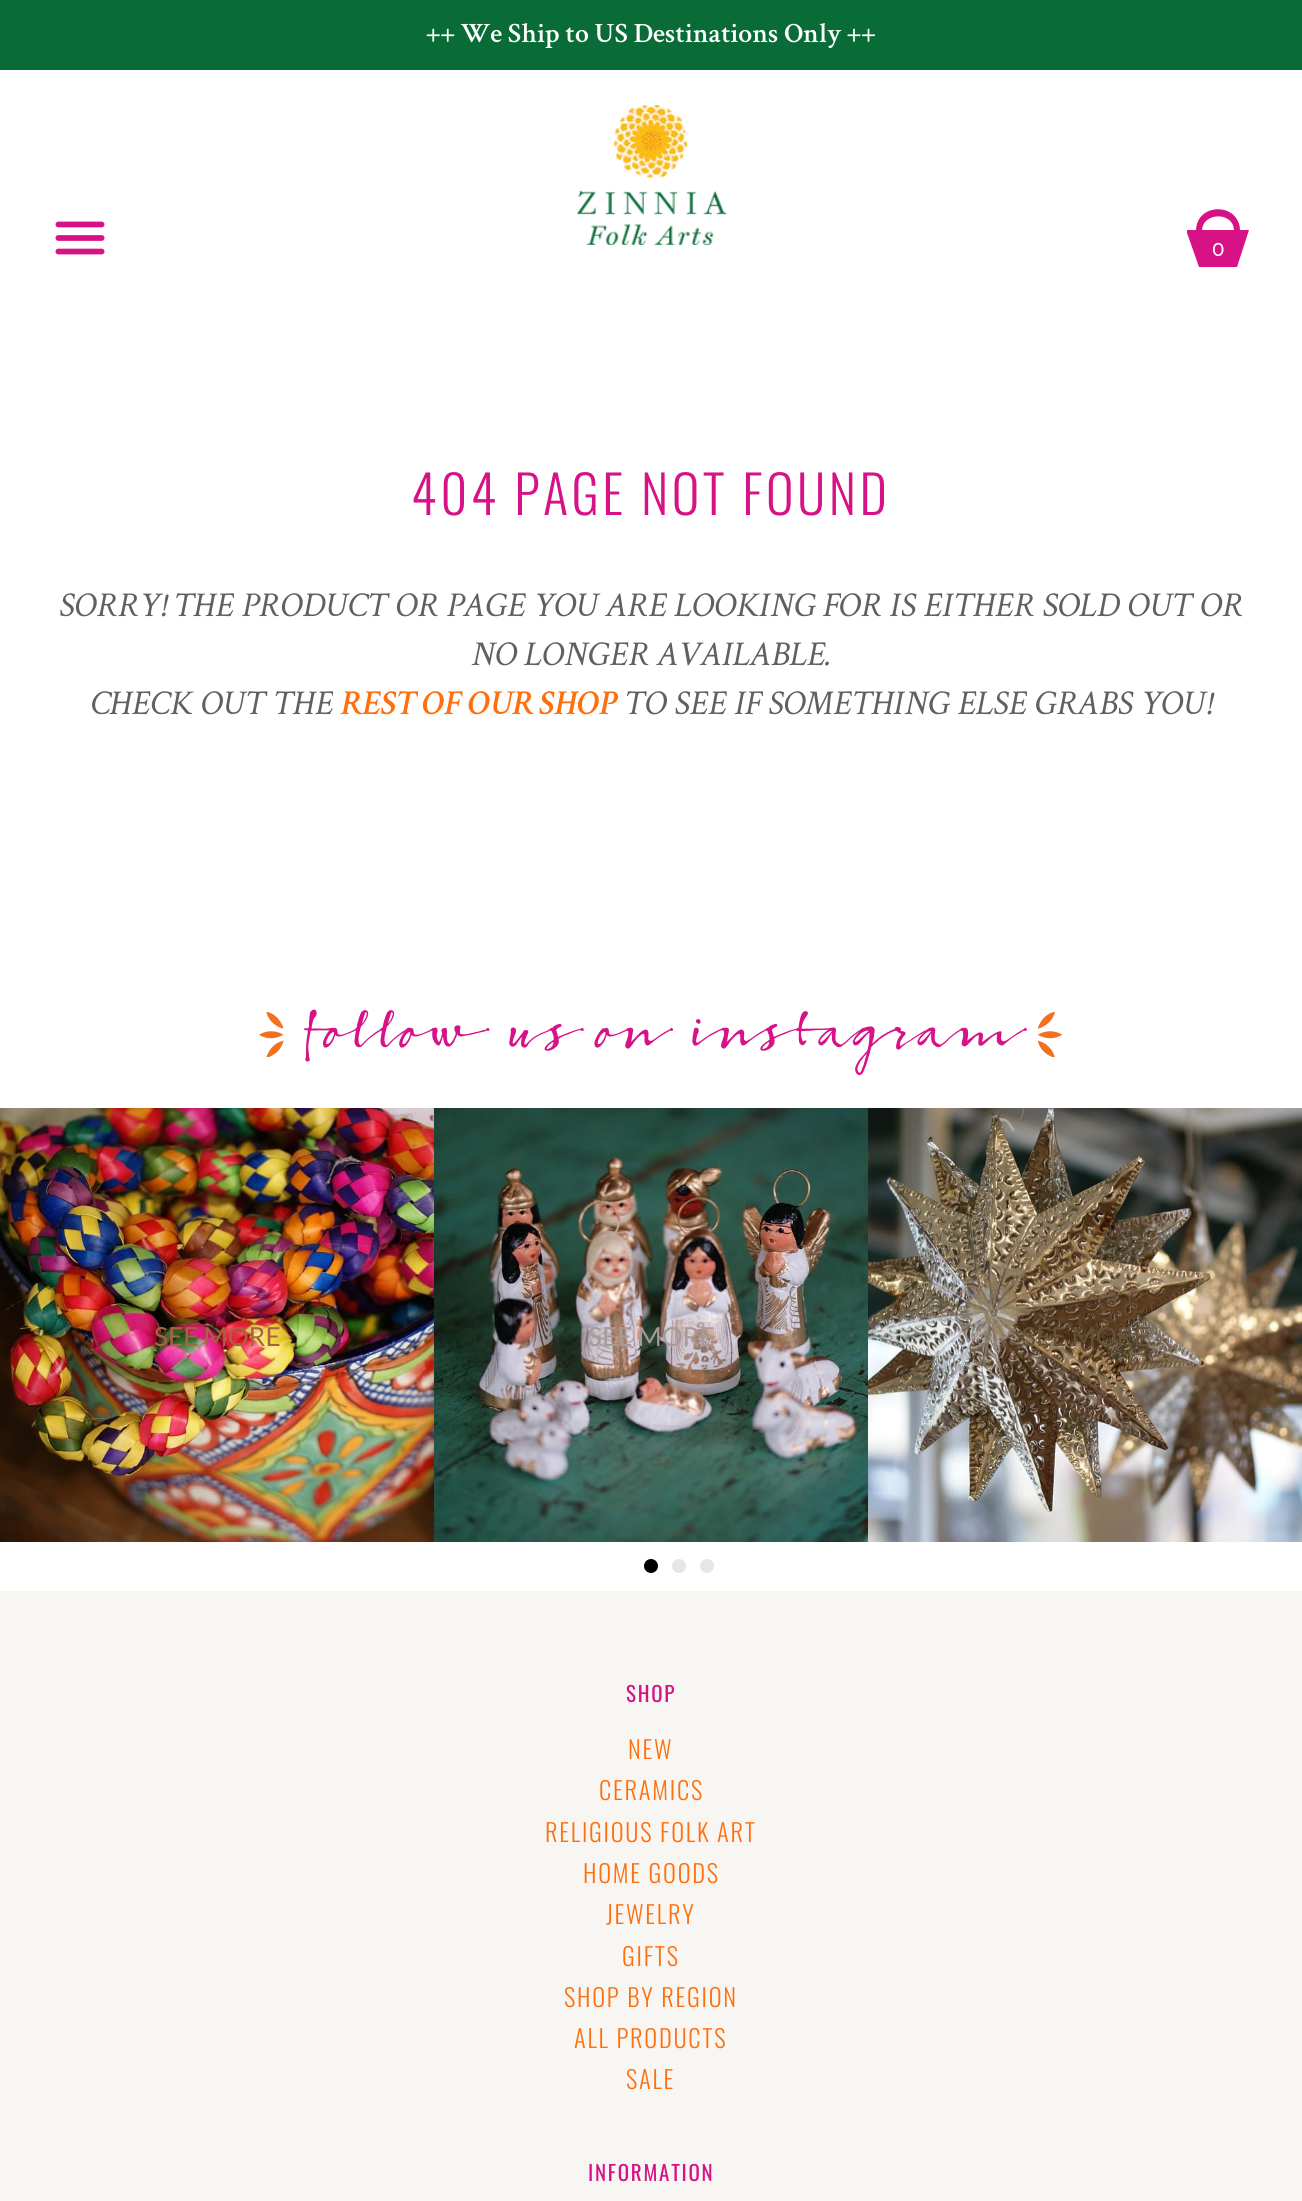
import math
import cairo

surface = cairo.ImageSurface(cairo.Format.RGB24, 1302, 2201)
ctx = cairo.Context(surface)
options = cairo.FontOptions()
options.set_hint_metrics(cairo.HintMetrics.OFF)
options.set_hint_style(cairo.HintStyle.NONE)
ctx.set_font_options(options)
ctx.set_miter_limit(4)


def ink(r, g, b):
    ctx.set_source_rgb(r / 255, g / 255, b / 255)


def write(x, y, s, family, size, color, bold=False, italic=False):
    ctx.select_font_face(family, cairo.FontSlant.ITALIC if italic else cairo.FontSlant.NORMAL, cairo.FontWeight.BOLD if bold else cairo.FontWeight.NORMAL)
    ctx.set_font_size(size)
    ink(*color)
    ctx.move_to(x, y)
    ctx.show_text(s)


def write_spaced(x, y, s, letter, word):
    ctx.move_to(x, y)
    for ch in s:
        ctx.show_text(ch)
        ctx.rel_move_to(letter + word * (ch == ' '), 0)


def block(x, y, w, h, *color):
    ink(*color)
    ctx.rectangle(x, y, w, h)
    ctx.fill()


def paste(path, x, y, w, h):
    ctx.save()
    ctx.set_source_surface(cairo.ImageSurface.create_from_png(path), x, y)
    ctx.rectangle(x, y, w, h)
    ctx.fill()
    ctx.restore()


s1 = dict(family="Crimson Text SemiBold", size=28, color=(255, 255, 255))
s2 = dict(family="Montserrat", size=18, color=(255, 255, 255), bold=True)
s3 = dict(family="Crimson Text", size=35, color=(96, 96, 96), italic=True)
s4 = dict(family="Crimson Text SemiBold", size=35, color=(255, 111, 13), italic=True)
s5 = dict(family="Lato", size=26.25, color=(169, 98, 68))
s6 = dict(family="Lato", size=26.25, color=(167, 155, 153))
s7 = dict(family="Lato", size=26.25, color=(101, 80, 56))

ink(255, 255, 255)
ctx.paint()
block(0, 0, 1302, 70, 9, 108, 55)
write(426, 42, "++ We Ship to US Destinations Only ++", **s1)
paste("pic1.png", 55, 221, 50, 34)
paste("pic2.png", 577, 105, 150, 140)
ctx.save()
ctx.rectangle(1187, 207, 63, 63)
ctx.clip()
ink(214, 18, 134)
ctx.new_path()
ctx.move_to(1237, 267)
ctx.line_to(1199, 267)
ctx.line_to(1186, 230)
ctx.line_to(1249, 230)
ctx.close_path()
ctx.fill()
ctx.restore()
ink(214, 18, 134)
ctx.new_path()
ctx.move_to(1240, 231)
ctx.line_to(1234, 231)
ctx.curve_to(1234, 211, 1202, 212, 1202, 231)
ctx.line_to(1196, 231)
ctx.curve_to(1196, 202, 1240, 202, 1240, 231)
ctx.close_path()
ctx.fill()
write(1212, 256, "0", **s2)
ctx.select_font_face("Oswald Light")
ctx.set_font_size(52.5)
ink(214, 18, 134)
write_spaced(411, 515, "404 PAGE NOT FOUND", 3.5, 0)
write(59, 616, "SORRY! THE PRODUCT OR PAGE YOU ARE LOOKING FOR IS EITHER SOLD OUT OR", **s3)
write(471, 665, "NO LONGER AVAILABLE.", **s3)
write(90, 714, "CHECK OUT THE", **s3)
write(341, 714, "REST OF OUR SHOP", **s4)
write(624, 714, "TO SEE IF SOMETHING ELSE GRABS YOU!", **s3)
paste("pic3.png", 259, 1012, 25, 45)
ctx.select_font_face("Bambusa")
ctx.set_font_size(42)
ink(214, 18, 134)
write_spaced(293, 1045, "follow us on instagram", 1.75, 0)
paste("pic4.png", 1038, 1012, 24, 45)
paste("pic5.png", 0, 1108, 434, 434)
write(154, 1346, "SEE MORE", **s5)
paste("pic6.png", 434, 1108, 434, 434)
write(588, 1346, "SEE MORE", **s6)
paste("pic7.png", 868, 1108, 434, 434)
write(1022, 1346, "SEE MORE", **s7)
ink(0, 0, 0)
ctx.new_path()
ctx.arc(651, 1566, 7, 0, 2 * math.pi)
ctx.fill()
ink(230, 230, 230)
ctx.arc(679, 1566, 7, 0, 2 * math.pi)
ctx.fill()
ctx.arc(707, 1566, 7, 0, 2 * math.pi)
ctx.fill()
block(0, 1591, 1302, 610, 247, 246, 242)
ctx.select_font_face("Oswald")
ctx.set_font_size(21)
ink(214, 18, 134)
write_spaced(626, 1702, "SHOP", 1.75, 0)
ctx.select_font_face("Oswald Light")
ctx.set_font_size(24.5)
ink(255, 111, 13)
write_spaced(628, 1759, "NEW", 1.75, 0)
write_spaced(599, 1800, "CERAMICS", 1.75, 0)
write_spaced(545, 1842, "RELIGIOUS FOLK ART", 1.75, 0)
write_spaced(583, 1883, "HOME GOODS", 1.75, 0)
write_spaced(606, 1924, "JEWELRY", 1.75, 0)
write_spaced(622, 1966, "GIFTS", 1.75, 0)
write_spaced(564, 2007, "SHOP BY REGION", 1.75, 0)
write_spaced(574, 2048, "ALL PRODUCTS", 1.75, 0)
write_spaced(626, 2089, "SALE", 1.75, 0)
ctx.select_font_face("Oswald")
ctx.set_font_size(21)
ink(214, 18, 134)
write_spaced(588, 2181, "INFORMATION", 1.75, 0)
surface.write_to_png("screenshot.png")
